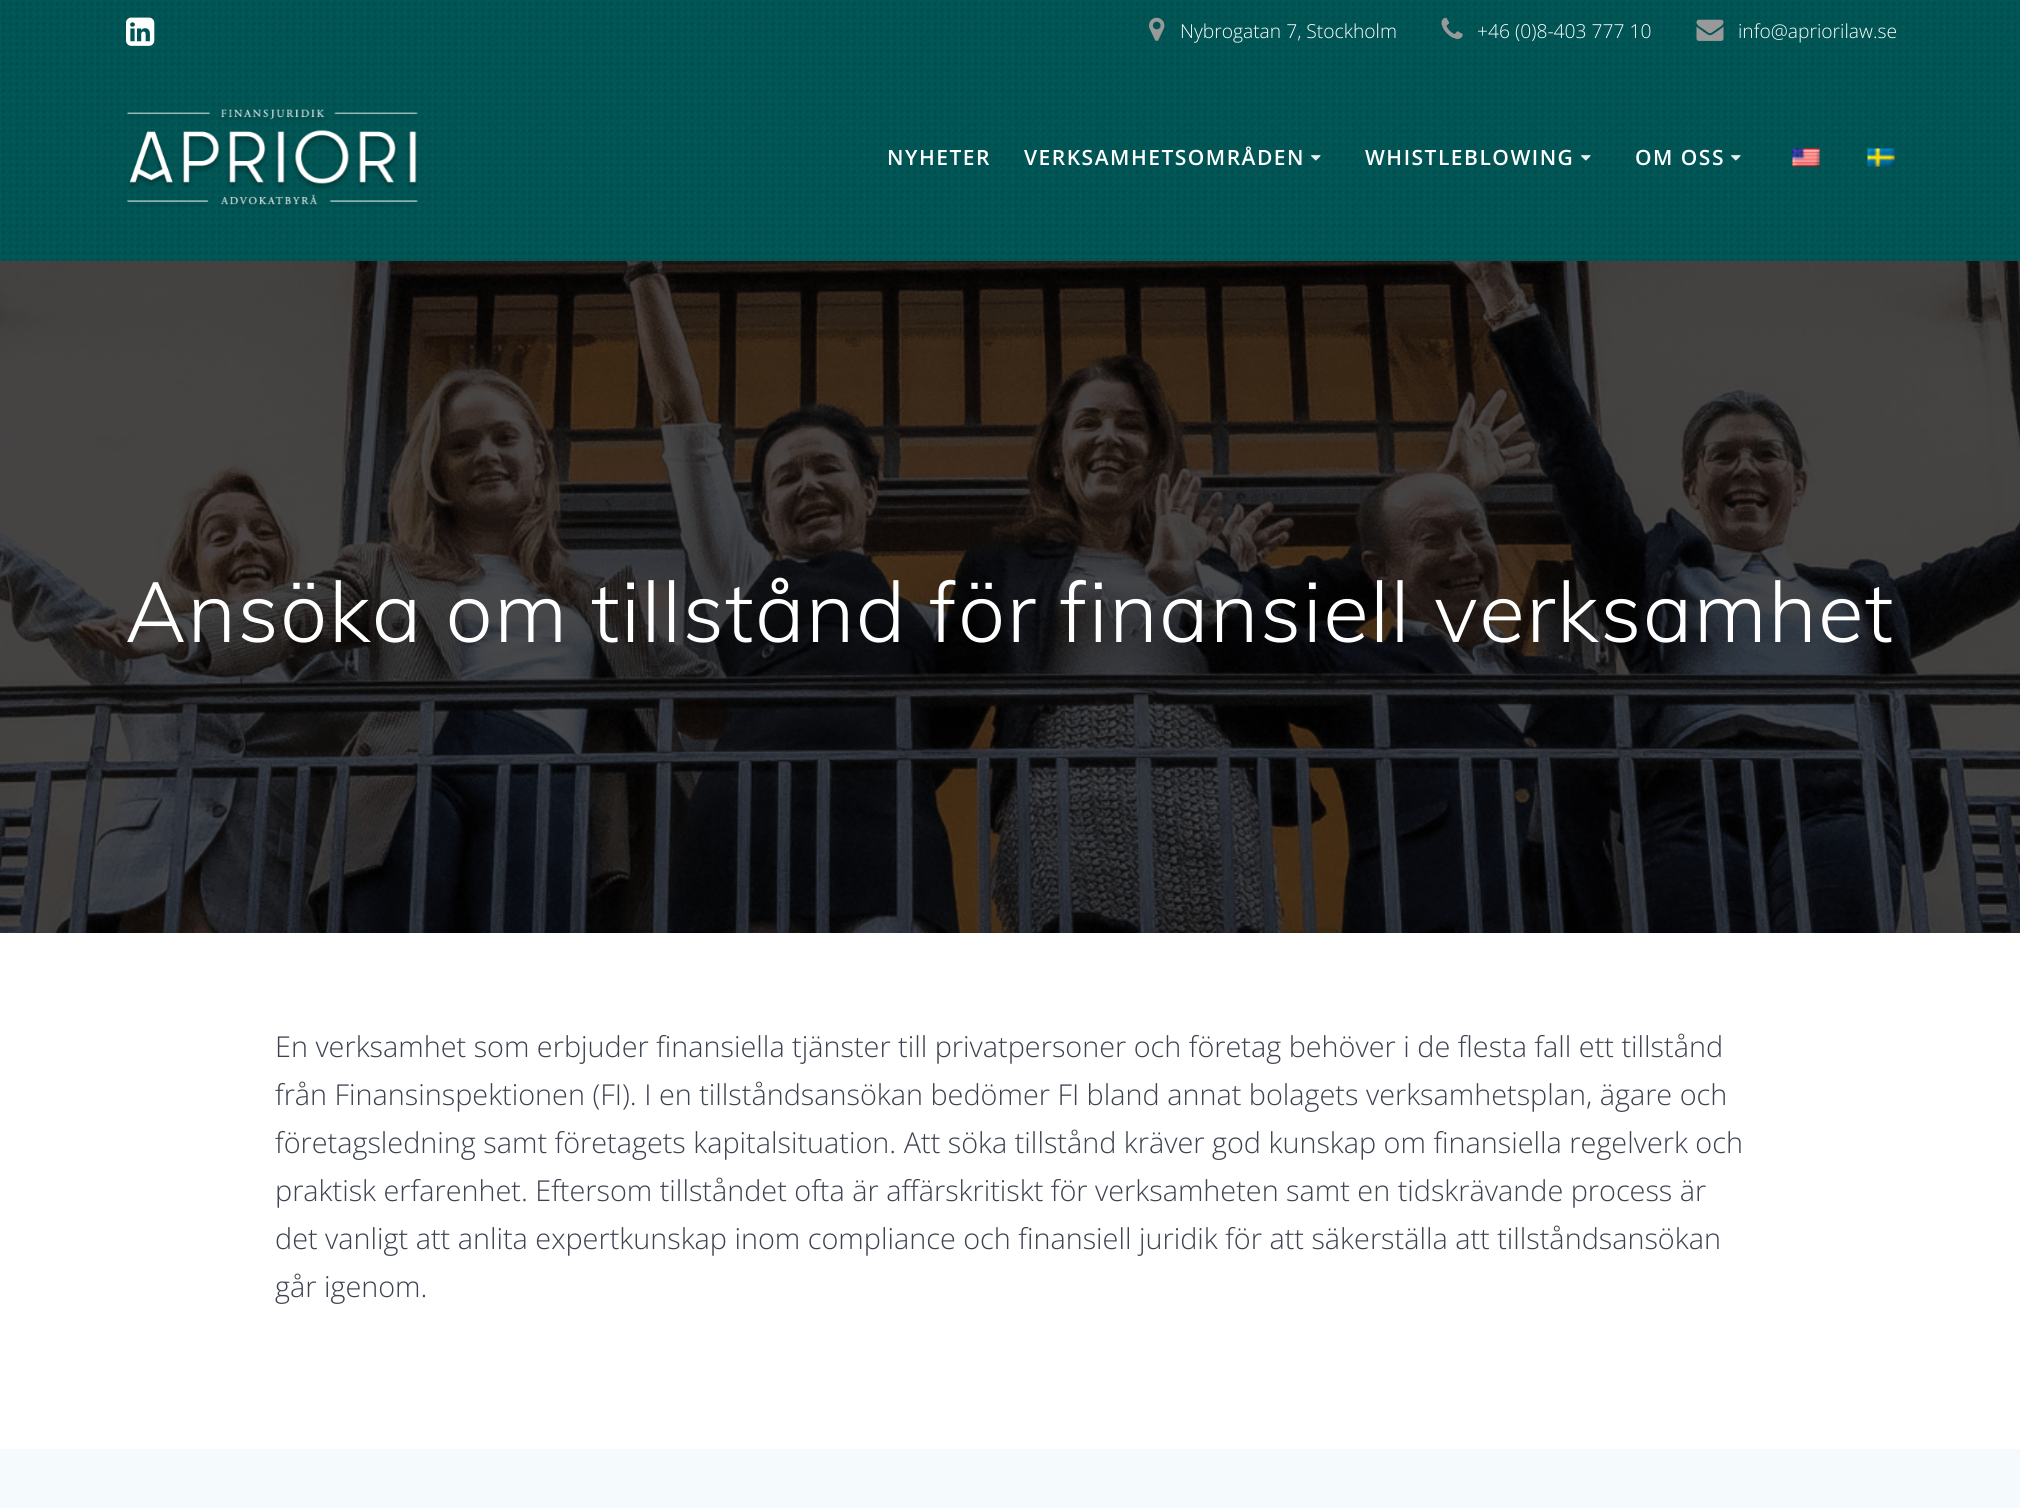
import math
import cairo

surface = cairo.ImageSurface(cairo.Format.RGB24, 2020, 1508)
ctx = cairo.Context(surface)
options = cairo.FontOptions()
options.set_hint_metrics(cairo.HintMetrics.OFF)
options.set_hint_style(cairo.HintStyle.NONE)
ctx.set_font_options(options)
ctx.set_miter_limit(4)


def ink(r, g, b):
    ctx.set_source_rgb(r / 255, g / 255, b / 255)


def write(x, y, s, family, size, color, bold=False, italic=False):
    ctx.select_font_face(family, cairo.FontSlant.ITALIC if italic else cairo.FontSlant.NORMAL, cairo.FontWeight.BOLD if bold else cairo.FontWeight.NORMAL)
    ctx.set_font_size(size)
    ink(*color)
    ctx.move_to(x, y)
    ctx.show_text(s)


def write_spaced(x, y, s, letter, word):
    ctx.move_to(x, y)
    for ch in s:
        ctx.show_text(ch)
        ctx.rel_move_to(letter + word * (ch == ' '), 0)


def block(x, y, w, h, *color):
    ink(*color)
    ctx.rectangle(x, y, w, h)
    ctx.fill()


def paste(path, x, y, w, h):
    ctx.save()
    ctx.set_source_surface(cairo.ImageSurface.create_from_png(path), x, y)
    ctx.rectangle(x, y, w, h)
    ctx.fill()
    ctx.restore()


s1 = dict(family="Open Sans Light", size=19.25, color=(255, 255, 255))
s2 = dict(family="Open Sans Light", size=28.8, color=(60, 66, 79))

ink(255, 255, 255)
ctx.paint()
block(0, 0, 2020, 60, 0, 88, 89)
paste("pic1.png", 1, 1, 2019, 59)
paste("pic2.png", 126, 17, 29, 29)
paste("pic3.png", 1149, 17, 16, 24)
write(1180, 38, "Nybrogatan 7, Stockholm", **s1)
paste("pic4.png", 1441, 17, 22, 22)
write(1477, 38, "+46 (0)8-403 777 10", **s1)
paste("pic5.png", 1696, 19, 28, 22)
write(1738, 38, "info@apriorilaw.se", **s1)
paste("pic6.png", 0, 60, 2020, 201)
paste("pic7.png", 127, 109, 291, 99)
ctx.select_font_face("Open Sans SemiBold")
ctx.set_font_size(21)
write_spaced(887, 165, "NYHETER", 1.5, 0)
write_spaced(1024, 165, "VERKSAMHETSOMRÅDEN", 1.5, 0)
paste("pic8.png", 1311, 155, 10, 6)
write_spaced(1365, 165, "WHISTLEBLOWING", 1.5, 0)
paste("pic8.png", 1581, 155, 10, 6)
write_spaced(1635, 165, "OM OSS", 1.5, 0)
paste("pic9.png", 1731, 155, 10, 6)
paste("pic10.png", 1792, 148, 28, 19)
paste("pic11.png", 1867, 148, 28, 19)
paste("pic12.png", 0, 261, 2020, 672)
ctx.select_font_face("Muli Light")
ctx.set_font_size(84)
write_spaced(125, 642, "Ansöka om tillstånd för finansiell verksamhet", 1.35, 0)
block(0, 1449, 2020, 59, 245, 250, 253)
write(275, 1057, "En verksamhet som erbjuder finansiella tjänster till privatpersoner och företag behöver i de flesta fall ett tillstånd", **s2)
write(275, 1105, "från Finansinspektionen (FI). I en tillståndsansökan bedömer FI bland annat bolagets verksamhetsplan, ägare och", **s2)
write(275, 1153, "företagsledning samt företagets kapitalsituation. Att söka tillstånd kräver god kunskap om finansiella regelverk och", **s2)
write(275, 1201, "praktisk erfarenhet. Eftersom tillståndet ofta är affärskritiskt för verksamheten samt en tidskrävande process är", **s2)
write(275, 1249, "det vanligt att anlita expertkunskap inom compliance och finansiell juridik för att säkerställa att tillståndsansökan", **s2)
write(275, 1297, "går igenom.", **s2)
surface.write_to_png("screenshot.png")
